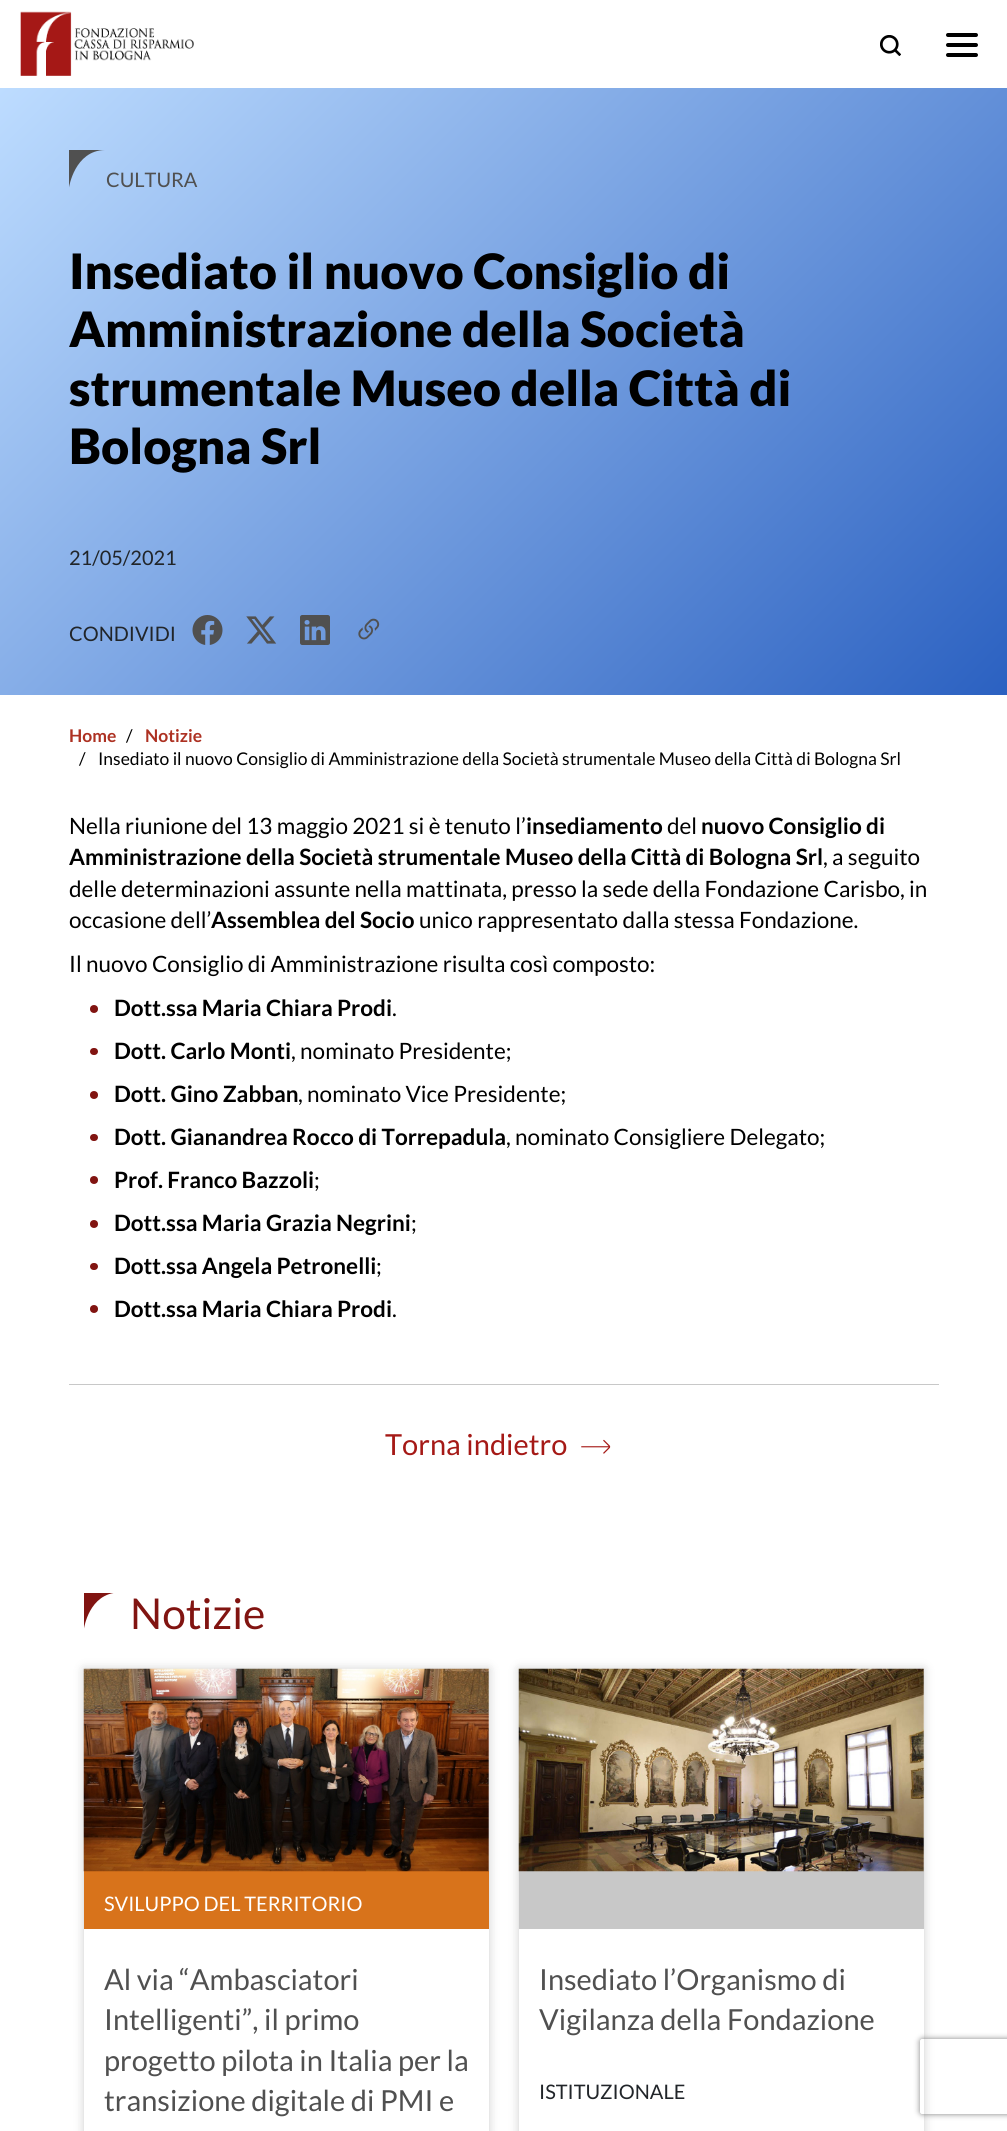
import math
import cairo

surface = cairo.ImageSurface(cairo.Format.RGB24, 1007, 2131)
ctx = cairo.Context(surface)
options = cairo.FontOptions()
options.set_hint_metrics(cairo.HintMetrics.OFF)
options.set_hint_style(cairo.HintStyle.NONE)
ctx.set_font_options(options)
ctx.set_miter_limit(4)


def ink(r, g, b):
    ctx.set_source_rgb(r / 255, g / 255, b / 255)


def write(x, y, s, family, size, color, bold=False, italic=False):
    ctx.select_font_face(family, cairo.FontSlant.ITALIC if italic else cairo.FontSlant.NORMAL, cairo.FontWeight.BOLD if bold else cairo.FontWeight.NORMAL)
    ctx.set_font_size(size)
    ink(*color)
    ctx.move_to(x, y)
    ctx.show_text(s)


def block(x, y, w, h, *color):
    ink(*color)
    ctx.rectangle(x, y, w, h)
    ctx.fill()


def round_path(x, y, w, h, r):
    ctx.new_sub_path()
    for i, (u, v) in enumerate([(x + w - r, y + h - r), (x + r, y + h - r), (x + r, y + r), (x + w - r, y + r)]):
        ctx.arc(u, v, r, i * math.pi / 2, (i + 1) * math.pi / 2)
    ctx.close_path()


def blur_box(x, y, w, h, r, blur, alpha):
    ctx.push_group_with_content(cairo.Content.ALPHA)
    ctx.set_operator(cairo.Operator.SOURCE)
    for i in range(15, -16, -2):
        e = blur * i / 6
        if min(w, h) + 2 * e > 0:
            ctx.set_source_rgba(0, 0, 0, alpha * math.erfc((i - 1) / 8.5) / 2)
            round_path(x - e, y - e, w + 2 * e, h + 2 * e, max(0, min(r + e + blur * .6, min(w, h) / 2 + e)))
            ctx.fill()
    ctx.mask(ctx.pop_group())


def paste(path, x, y, w, h):
    ctx.save()
    ctx.set_source_surface(cairo.ImageSurface.create_from_png(path), x, y)
    ctx.rectangle(x, y, w, h)
    ctx.fill()
    ctx.restore()


s1 = dict(family="Lato", size=20, color=(80, 80, 80))
s2 = dict(family="Lato Black", size=48.75, color=(0, 0, 0))
s3 = dict(family="Lato", size=20, color=(33, 37, 41))
s4 = dict(family="Lato", size=17.5, color=(173, 49, 34), bold=True)
s5 = dict(family="Lato", size=17.5, color=(0, 0, 0))
s6 = dict(family="Lato", size=22.5, color=(0, 0, 0))
s7 = dict(family="Lato", size=22.5, color=(0, 0, 0), bold=True)
s8 = dict(family="Lato", size=29, color=(165, 25, 22))
s9 = dict(family="Lato", size=42.5, color=(129, 20, 17))
s10 = dict(family="Lato", size=20, color=(255, 255, 255))
s11 = dict(family="Lato", size=29, color=(80, 80, 80))

ink(255, 255, 255)
ctx.paint()
paste("pic1.png", 20, 11, 174, 65)
paste("pic2.png", 880, 35, 21, 21)
ink(0, 0, 0)
round_path(946, 33, 32, 4, 2)
ctx.fill()
round_path(946, 43, 32, 4, 2)
ctx.fill()
round_path(946, 53, 32, 4, 2)
ctx.fill()
gradient = cairo.LinearGradient(100, -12, 908, 795)
gradient.add_color_stop_rgba(0, 0.741, 0.863, 1, 1)
gradient.add_color_stop_rgba(1, 0.169, 0.38, 0.757, 1)
ctx.set_source(gradient)
ctx.rectangle(0, 88, 1007, 607)
ctx.fill()
ink(80, 80, 80)
ctx.new_path()
ctx.move_to(105, 150)
ctx.line_to(69, 150)
ctx.line_to(69, 187.5)
ctx.curve_to(69, 187.5, 74.5, 150.5, 105, 150)
ctx.close_path()
ctx.fill()
write(106, 187, "CULTURA", **s1)
write(69, 289, "Insediato il nuovo Consiglio di", **s2)
write(69, 347, "Amministrazione della Società", **s2)
write(69, 406, "strumentale Museo della Città di", **s2)
write(69, 464, "Bologna Srl", **s2)
write(69, 565, "21/05/2021", **s3)
write(69, 641, "CONDIVIDI", **s3)
paste("pic3.png", 192, 615, 31, 30)
paste("pic4.png", 246, 616, 31, 28)
paste("pic5.png", 300, 615, 30, 30)
paste("pic6.png", 358, 618, 22, 22)
write(69, 742, "Home", **s4)
write(126, 742, "/", **s5)
write(145, 742, "Notizie", **s4)
write(79, 765, "/", **s5)
write(98, 765, "Insediato il nuovo Consiglio di Amministrazione della Società strumentale Museo della Città di Bologna Srl", **s5)
write(69, 834, "Nella riunione del 13 maggio 2021 si è tenuto l’", **s6)
write(526, 834, "insediamento", **s7)
write(667, 834, "del", **s6)
write(701, 834, "nuovo Consiglio di", **s7)
write(69, 865, "Amministrazione della Società strumentale Museo della Città di Bologna Srl", **s7)
write(823, 865, ", a seguito", **s6)
write(69, 897, "delle determinazioni assunte nella mattinata, presso la sede della Fondazione Carisbo, in", **s6)
write(69, 928, "occasione dell’", **s6)
write(211, 928, "Assemblea del Socio", **s7)
write(419, 928, "unico rappresentato dalla stessa Fondazione.", **s6)
write(69, 972, "Il nuovo Consiglio di Amministrazione risulta così composto:", **s6)
ink(129, 20, 17)
ctx.new_path()
ctx.arc(94, 1009, 4, 0, 2 * math.pi)
ctx.fill()
write(114, 1016, "Dott.ssa Maria Chiara Prodi", **s7)
write(392, 1016, ".", **s6)
ink(129, 20, 17)
round_path(90, 1048, 8, 7, 3.5)
ctx.fill()
write(114, 1059, "Dott. Carlo Monti", **s7)
write(291, 1059, ", nominato Presidente;", **s6)
ink(129, 20, 17)
ctx.new_path()
ctx.arc(94, 1095, 4, 0, 2 * math.pi)
ctx.fill()
write(114, 1102, "Dott. Gino Zabban", **s7)
write(298, 1102, ", nominato Vice Presidente;", **s6)
ink(129, 20, 17)
round_path(90, 1134, 8, 7, 3.5)
ctx.fill()
write(114, 1145, "Dott. Gianandrea Rocco di Torrepadula", **s7)
write(506, 1145, ", nominato Consigliere Delegato;", **s6)
ink(129, 20, 17)
ctx.new_path()
ctx.arc(94, 1180, 4, 0, 2 * math.pi)
ctx.fill()
write(114, 1188, "Prof. Franco Bazzoli", **s7)
write(314, 1188, ";", **s6)
ink(129, 20, 17)
ctx.new_path()
ctx.arc(94, 1224, 4, 0, 2 * math.pi)
ctx.fill()
write(114, 1231, "Dott.ssa Maria Grazia Negrini", **s7)
write(411, 1231, ";", **s6)
ink(129, 20, 17)
round_path(90, 1263, 8, 7, 3.5)
ctx.fill()
write(114, 1274, "Dott.ssa Angela Petronelli", **s7)
write(376, 1274, ";", **s6)
ink(129, 20, 17)
ctx.new_path()
ctx.arc(94, 1309, 4, 0, 2 * math.pi)
ctx.fill()
write(114, 1317, "Dott.ssa Maria Chiara Prodi", **s7)
write(392, 1317, ".", **s6)
block(69, 1384, 870, 1, 200, 200, 200)
write(385, 1455, "Torna indietro", **s8)
paste("pic7.png", 581, 1439, 30, 15)
ctx.save()
ctx.rectangle(84, 1593, 35, 36)
ctx.clip()
ink(129, 20, 17)
ctx.new_path()
ctx.move_to(119, 1592.5)
ctx.line_to(84, 1592.5)
ctx.line_to(84, 1628.5)
ctx.curve_to(84, 1628.5, 89, 1593, 119, 1592.5)
ctx.close_path()
ctx.fill()
ctx.restore()
write(130, 1629, "Notizie", **s9)
ctx.save()
ctx.set_fill_rule(cairo.FillRule.EVEN_ODD)
ctx.new_path()
ctx.move_to(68, 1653)
ctx.line_to(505, 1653)
ctx.line_to(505, 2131)
ctx.line_to(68, 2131)
ctx.close_path()
ctx.move_to(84, 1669)
ctx.line_to(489, 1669)
ctx.line_to(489, 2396)
ctx.line_to(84, 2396)
ctx.close_path()
ctx.clip()
ink(0, 0, 3)
blur_box(84, 1669, 405, 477, 0, 5, 0.2)
ctx.restore()
block(84, 1871, 405, 58, 216, 115, 27)
paste("pic8.png", 83, 1668, 406, 204)
write(104, 1911, "SVILUPPO DEL TERRITORIO", **s10)
write(104, 1990, "Al via “Ambasciatori", **s11)
write(104, 2030, "Intelligenti”, il primo", **s11)
write(104, 2071, "progetto pilota in Italia per la", **s11)
write(104, 2111, "transizione digitale di PMI e", **s11)
ctx.save()
ctx.set_fill_rule(cairo.FillRule.EVEN_ODD)
ctx.new_path()
ctx.move_to(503, 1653)
ctx.line_to(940, 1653)
ctx.line_to(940, 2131)
ctx.line_to(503, 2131)
ctx.close_path()
ctx.move_to(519, 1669)
ctx.line_to(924, 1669)
ctx.line_to(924, 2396)
ctx.line_to(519, 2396)
ctx.close_path()
ctx.clip()
ink(0, 0, 3)
blur_box(519, 1669, 405, 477, 0, 5, 0.2)
ctx.restore()
block(519, 1871, 405, 58, 200, 200, 200)
paste("pic9.png", 518, 1668, 406, 204)
write(539, 1990, "Insediato l’Organismo di", **s11)
write(539, 2030, "Vigilanza della Fondazione", **s11)
write(539, 2099, "ISTITUZIONALE", **s3)
ctx.save()
ctx.set_fill_rule(cairo.FillRule.EVEN_ODD)
ctx.new_path()
ctx.move_to(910, 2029)
ctx.line_to(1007, 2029)
ctx.line_to(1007, 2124)
ctx.line_to(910, 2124)
ctx.close_path()
ctx.move_to(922.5, 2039)
ctx.line_to(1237.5, 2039)
ctx.curve_to(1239, 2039, 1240, 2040, 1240, 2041.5)
ctx.line_to(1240, 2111.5)
ctx.curve_to(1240, 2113, 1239, 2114, 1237.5, 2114)
ctx.line_to(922.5, 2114)
ctx.curve_to(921, 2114, 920, 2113, 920, 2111.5)
ctx.line_to(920, 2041.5)
ctx.curve_to(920, 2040, 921, 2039, 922.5, 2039)
ctx.close_path()
ctx.clip()
ink(128, 128, 128)
blur_box(920, 2039, 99, 75, 2.5, 3, 1)
ctx.restore()
surface.write_to_png("screenshot.png")
